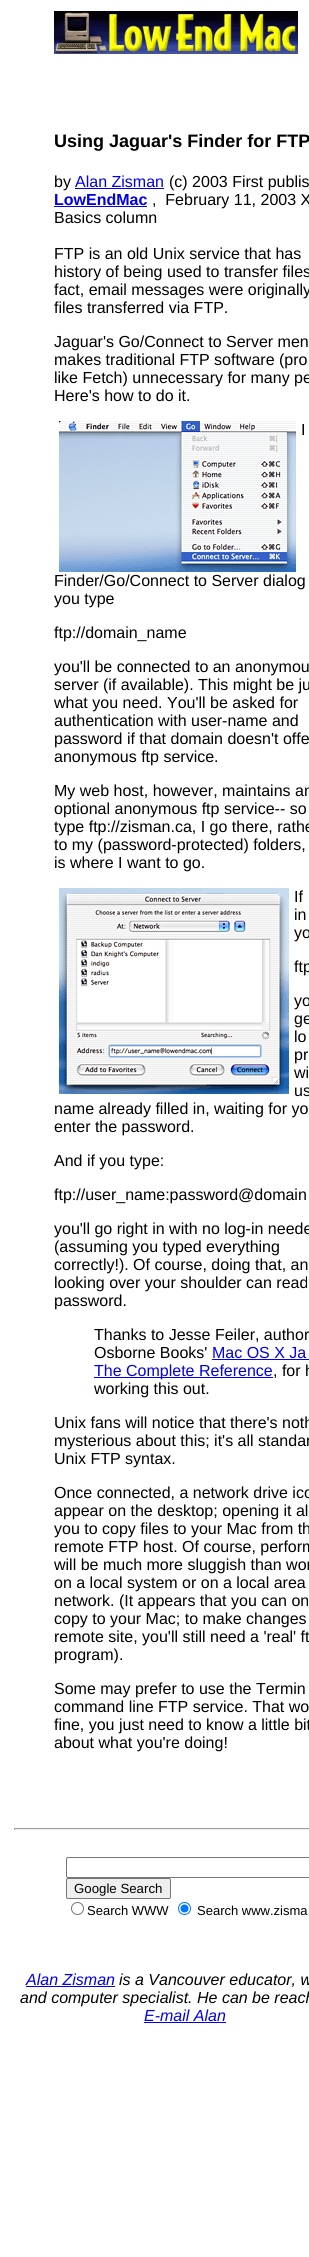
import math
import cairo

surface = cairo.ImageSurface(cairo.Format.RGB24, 309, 2257)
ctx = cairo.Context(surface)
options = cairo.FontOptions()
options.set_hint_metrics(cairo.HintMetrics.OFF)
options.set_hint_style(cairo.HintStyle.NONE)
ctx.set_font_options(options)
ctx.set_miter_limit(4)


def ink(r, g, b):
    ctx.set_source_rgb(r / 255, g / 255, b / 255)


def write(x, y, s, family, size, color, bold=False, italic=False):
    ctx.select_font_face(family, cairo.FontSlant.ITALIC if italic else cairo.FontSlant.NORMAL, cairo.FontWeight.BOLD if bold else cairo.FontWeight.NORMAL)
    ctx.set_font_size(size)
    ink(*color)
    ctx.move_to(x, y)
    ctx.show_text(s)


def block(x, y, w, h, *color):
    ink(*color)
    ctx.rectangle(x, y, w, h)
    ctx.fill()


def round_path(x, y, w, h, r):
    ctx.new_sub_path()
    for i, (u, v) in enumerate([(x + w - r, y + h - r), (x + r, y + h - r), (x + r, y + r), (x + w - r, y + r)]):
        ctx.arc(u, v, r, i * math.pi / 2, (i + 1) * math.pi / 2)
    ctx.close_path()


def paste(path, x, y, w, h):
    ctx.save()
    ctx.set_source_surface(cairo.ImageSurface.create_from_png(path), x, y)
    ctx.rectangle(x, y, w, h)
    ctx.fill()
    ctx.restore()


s1 = dict(family="Liberation Sans", size=18, color=(0, 0, 0), bold=True)
s2 = dict(family="Liberation Sans", size=16, color=(0, 0, 0))
s3 = dict(family="Liberation Sans", size=16, color=(0, 0, 238))
s4 = dict(family="Liberation Sans", size=16, color=(0, 0, 238), bold=True)
s5 = dict(family="Liberation Sans", size=13.25, color=(0, 0, 0))
s6 = dict(family="Liberation Sans", size=13, color=(0, 0, 0))
s7 = dict(family="Liberation Sans", size=16, color=(0, 0, 238), italic=True)
s8 = dict(family="Liberation Sans", size=16, color=(0, 0, 0), italic=True)

ink(255, 255, 255)
ctx.paint()
paste("pic1.png", 54, 11, 244, 43)
write(54, 147, "Using Jaguar's Finder for FTP", **s1)
write(54, 187, "by", **s2)
write(75, 187, "Alan Zisman", **s3)
block(75, 188, 89, 1, 0, 0, 238)
write(169, 187, "(c) 2003 First publis", **s2)
write(54, 205, "LowEndMac", **s4)
block(54, 206, 93, 1, 0, 0, 238)
write(152, 205, ",  February 11, 2003 X", **s2)
write(54, 223, "Basics column", **s2)
write(54, 259, "FTP is an old Unix service that has", **s2)
write(54, 277, "history of being used to transfer files", **s2)
write(54, 295, "fact, email messages were originally", **s2)
write(54, 313, "files transferred via FTP.", **s2)
write(54, 347, "Jaguar's Go/Connect to Server men", **s2)
write(54, 365, "makes traditional FTP software (pro", **s2)
write(54, 383, "like Fetch) unnecessary for many pe", **s2)
write(54, 401, "Here's how to do it.", **s2)
paste("pic2.png", 59, 421, 237, 151)
write(301, 435, "I", **s2)
write(54, 586, "Finder/Go/Connect to Server dialog", **s2)
write(54, 604, "you type", **s2)
write(54, 638, "ftp://domain_name", **s2)
write(54, 672, "you'll be connected to an anonymou", **s2)
write(54, 690, "server (if available). This might be ju", **s2)
write(54, 708, "what you need. You'll be asked for", **s2)
write(54, 726, "authentication with user-name and", **s2)
write(54, 744, "password if that domain doesn't offe", **s2)
write(54, 762, "anonymous ftp service.", **s2)
write(54, 796, "My web host, however, maintains an", **s2)
write(54, 814, "optional anonymous ftp service-- so", **s2)
write(54, 832, "type ftp://zisman.ca, I go there, rathe", **s2)
write(54, 850, "to my (password-protected) folders,", **s2)
write(54, 868, "is where I want to go.", **s2)
paste("pic3.png", 59, 888, 230, 206)
write(294, 902, "If", **s2)
write(294, 920, "in", **s2)
write(294, 938, "yo", **s2)
write(294, 972, "ftp", **s2)
write(294, 1006, "yo", **s2)
write(294, 1024, "ge", **s2)
write(294, 1042, "lo", **s2)
write(294, 1060, "pr", **s2)
write(294, 1078, "wi", **s2)
write(294, 1096, "us", **s2)
write(54, 1114, "name already filled in, waiting for yo", **s2)
write(54, 1132, "enter the password.", **s2)
write(54, 1166, "And if you type:", **s2)
write(54, 1200, "ftp://user_name:password@domain", **s2)
write(54, 1234, "you'll go right in with no log-in neede", **s2)
write(54, 1252, "(assuming you typed everything", **s2)
write(54, 1270, "correctly!). Of course, doing that, an", **s2)
write(54, 1288, "looking over your shoulder can read", **s2)
write(54, 1306, "password.", **s2)
write(94, 1340, "Thanks to Jesse Feiler, author", **s2)
write(94, 1358, "Osborne Books'", **s2)
write(212, 1358, "Mac OS X Ja", **s3)
block(212, 1359, 97, 1, 0, 0, 238)
block(94, 1377, 179, 1, 0, 0, 238)
write(94, 1376, "The Complete Reference", **s3)
write(273, 1376, ", for h", **s2)
write(94, 1394, "working this out.", **s2)
write(54, 1428, "Unix fans will notice that there's noth", **s2)
write(54, 1446, "mysterious about this; it's all standar", **s2)
write(54, 1464, "Unix FTP syntax.", **s2)
write(54, 1498, "Once connected, a network drive ico", **s2)
write(54, 1516, "appear on the desktop; opening it al", **s2)
write(54, 1534, "you to copy files to your Mac from th", **s2)
write(54, 1552, "remote FTP host. Of course, perform", **s2)
write(54, 1570, "will be much more sluggish than wor", **s2)
write(54, 1588, "on a local system or on a local area", **s2)
write(54, 1606, "network. (It appears that you can on", **s2)
write(54, 1624, "copy to your Mac; to make changes", **s2)
write(54, 1642, "remote site, you'll still need a 'real' ft", **s2)
write(54, 1660, "program).", **s2)
write(54, 1694, "Some may prefer to use the Termin", **s2)
write(54, 1712, "command line FTP service. That wo", **s2)
write(54, 1730, "fine, you just need to know a little bit", **s2)
write(54, 1748, "about what you're doing!", **s2)
block(14, 1828, 295, 1, 159, 159, 159)
block(14, 1829, 295, 1, 238, 238, 238)
block(14, 1828, 1, 2, 159, 159, 159)
round_path(66.5, 1857.5, 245, 20, 1.5)
ink(118, 118, 118)
ctx.set_line_width(1)
ctx.stroke()
ink(239, 239, 239)
round_path(66.5, 1878.5, 104, 20, 1.5)
ctx.fill_preserve()
ink(118, 118, 118)
ctx.stroke()
write(74, 1893, "Google Search", **s5)
ctx.new_path()
ctx.arc(77.5, 1908.5, 6, 0, 2 * math.pi)
ink(118, 118, 118)
ctx.stroke()
write(87, 1915, "Search WWW", **s6)
ctx.new_path()
ctx.arc(184.5, 1908.5, 6, 0, 2 * math.pi)
ink(0, 117, 255)
ctx.stroke()
ctx.arc(184.5, 1908.5, 4, 0, 2 * math.pi)
ctx.fill()
write(197, 1915, "Search www.zisma", **s6)
write(26, 1985, "Alan Zisman", **s7)
block(26, 1986, 89, 1, 0, 0, 238)
write(119, 1985, "is a Vancouver educator, w", **s8)
write(20, 2003, "and computer specialist. He can be reach", **s8)
write(144, 2021, "E-mail Alan", **s7)
block(144, 2022, 82, 1, 0, 0, 238)
surface.write_to_png("screenshot.png")
